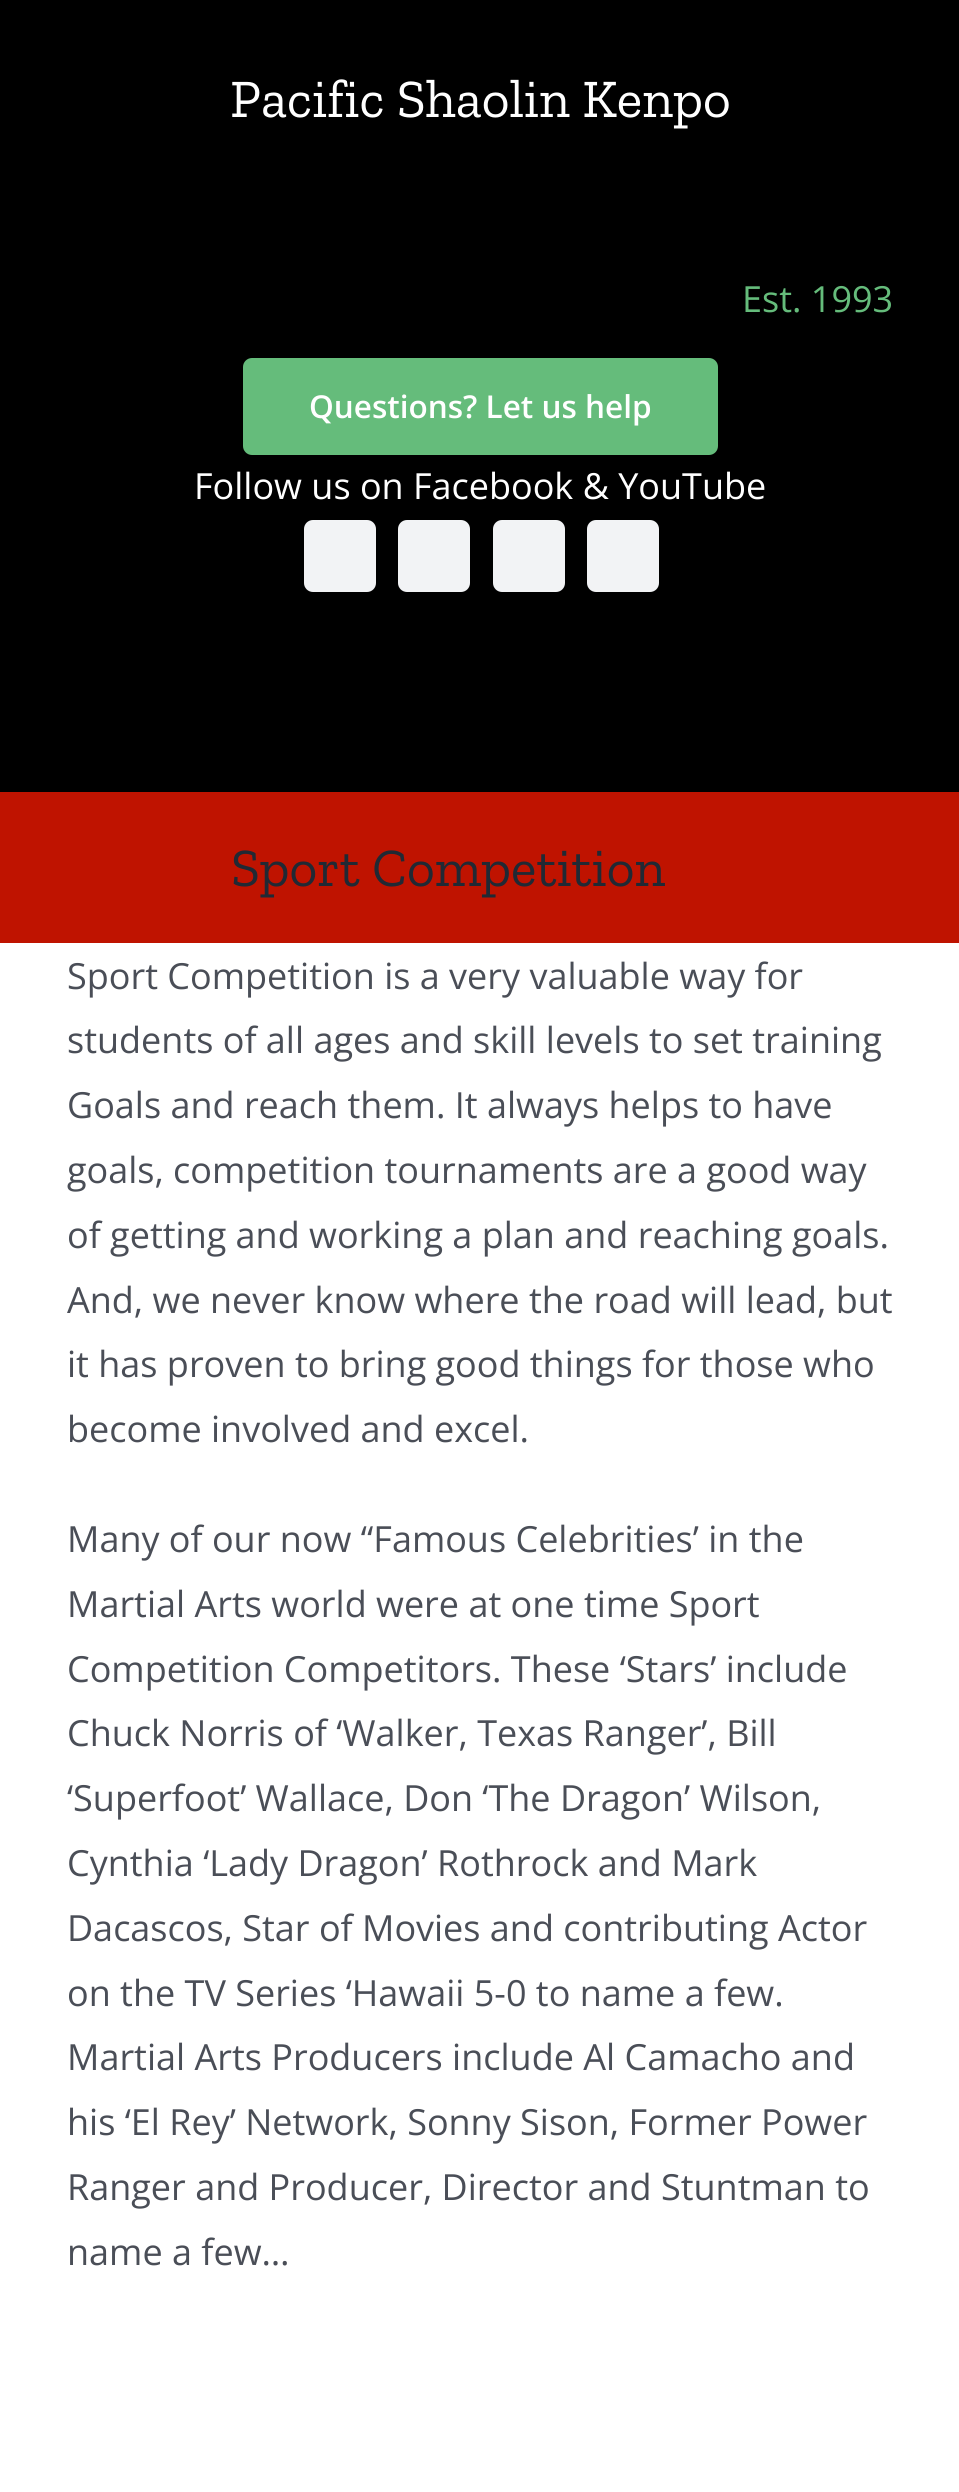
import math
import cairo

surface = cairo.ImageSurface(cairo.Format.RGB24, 959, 2492)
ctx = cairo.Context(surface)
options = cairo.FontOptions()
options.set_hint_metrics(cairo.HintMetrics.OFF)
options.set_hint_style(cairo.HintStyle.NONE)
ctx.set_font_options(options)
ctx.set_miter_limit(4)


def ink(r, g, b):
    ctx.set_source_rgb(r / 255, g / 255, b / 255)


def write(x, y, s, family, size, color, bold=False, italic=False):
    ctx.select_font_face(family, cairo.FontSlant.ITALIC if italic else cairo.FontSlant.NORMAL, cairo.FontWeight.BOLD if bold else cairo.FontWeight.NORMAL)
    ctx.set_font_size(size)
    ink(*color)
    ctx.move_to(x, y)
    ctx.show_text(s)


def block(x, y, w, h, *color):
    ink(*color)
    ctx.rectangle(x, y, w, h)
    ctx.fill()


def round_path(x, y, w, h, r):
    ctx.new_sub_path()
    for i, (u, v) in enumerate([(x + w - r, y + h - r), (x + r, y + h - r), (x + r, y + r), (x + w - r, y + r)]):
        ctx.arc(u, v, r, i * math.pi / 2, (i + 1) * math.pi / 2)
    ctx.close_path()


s1 = dict(family="Zilla Slab", size=54, color=(255, 255, 255))
s2 = dict(family="Open Sans", size=36, color=(101, 188, 123))
s3 = dict(family="Open Sans SemiBold", size=31.5, color=(255, 255, 255))
s4 = dict(family="Open Sans", size=36, color=(255, 255, 255))
s5 = dict(family="Zilla Slab", size=54, color=(33, 41, 52))
s6 = dict(family="Open Sans", size=36, color=(74, 78, 87))

ink(255, 255, 255)
ctx.paint()
block(0, 0, 959, 792, 0, 0, 0)
write(230, 117, "Pacific Shaolin Kenpo", **s1)
write(742, 312, "Est. 1993", **s2)
round_path(243, 358, 475, 97, 9)
ctx.fill()
write(309, 418, "Questions? Let us help", **s3)
write(194, 499, "Follow us on Facebook & YouTube", **s4)
ink(242, 243, 245)
round_path(304, 520, 72, 72, 9)
ctx.fill()
round_path(398, 520, 72, 72, 9)
ctx.fill()
round_path(493, 520, 72, 72, 9)
ctx.fill()
round_path(587, 520, 72, 72, 9)
ctx.fill()
block(0, 792, 959, 151, 191, 19, 0)
write(231, 886, "Sport Competition", **s5)
write(67, 989, "Sport Competition is a very valuable way for", **s6)
write(67, 1053, "students of all ages and skill levels to set training", **s6)
write(67, 1118, "Goals and reach them. It always helps to have", **s6)
write(67, 1183, "goals, competition tournaments are a good way", **s6)
write(67, 1248, "of getting and working a plan and reaching goals.", **s6)
write(67, 1313, "And, we never know where the road will lead, but", **s6)
write(67, 1377, "it has proven to bring good things for those who", **s6)
write(67, 1442, "become involved and excel.", **s6)
write(67, 1552, "Many of our now “Famous Celebrities’ in the", **s6)
write(67, 1617, "Martial Arts world were at one time Sport", **s6)
write(67, 1682, "Competition Competitors. These ‘Stars’ include", **s6)
write(67, 1746, "Chuck Norris of ‘Walker, Texas Ranger’, Bill", **s6)
write(67, 1811, "‘Superfoot’ Wallace, Don ‘The Dragon’ Wilson,", **s6)
write(67, 1876, "Cynthia ‘Lady Dragon’ Rothrock and Mark", **s6)
write(67, 1941, "Dacascos, Star of Movies and contributing Actor", **s6)
write(67, 2006, "on the TV Series ‘Hawaii 5-0 to name a few.", **s6)
write(67, 2070, "Martial Arts Producers include Al Camacho and", **s6)
write(67, 2135, "his ‘El Rey’ Network, Sonny Sison, Former Power", **s6)
write(67, 2200, "Ranger and Producer, Director and Stuntman to", **s6)
write(67, 2265, "name a few…", **s6)
surface.write_to_png("screenshot.png")
